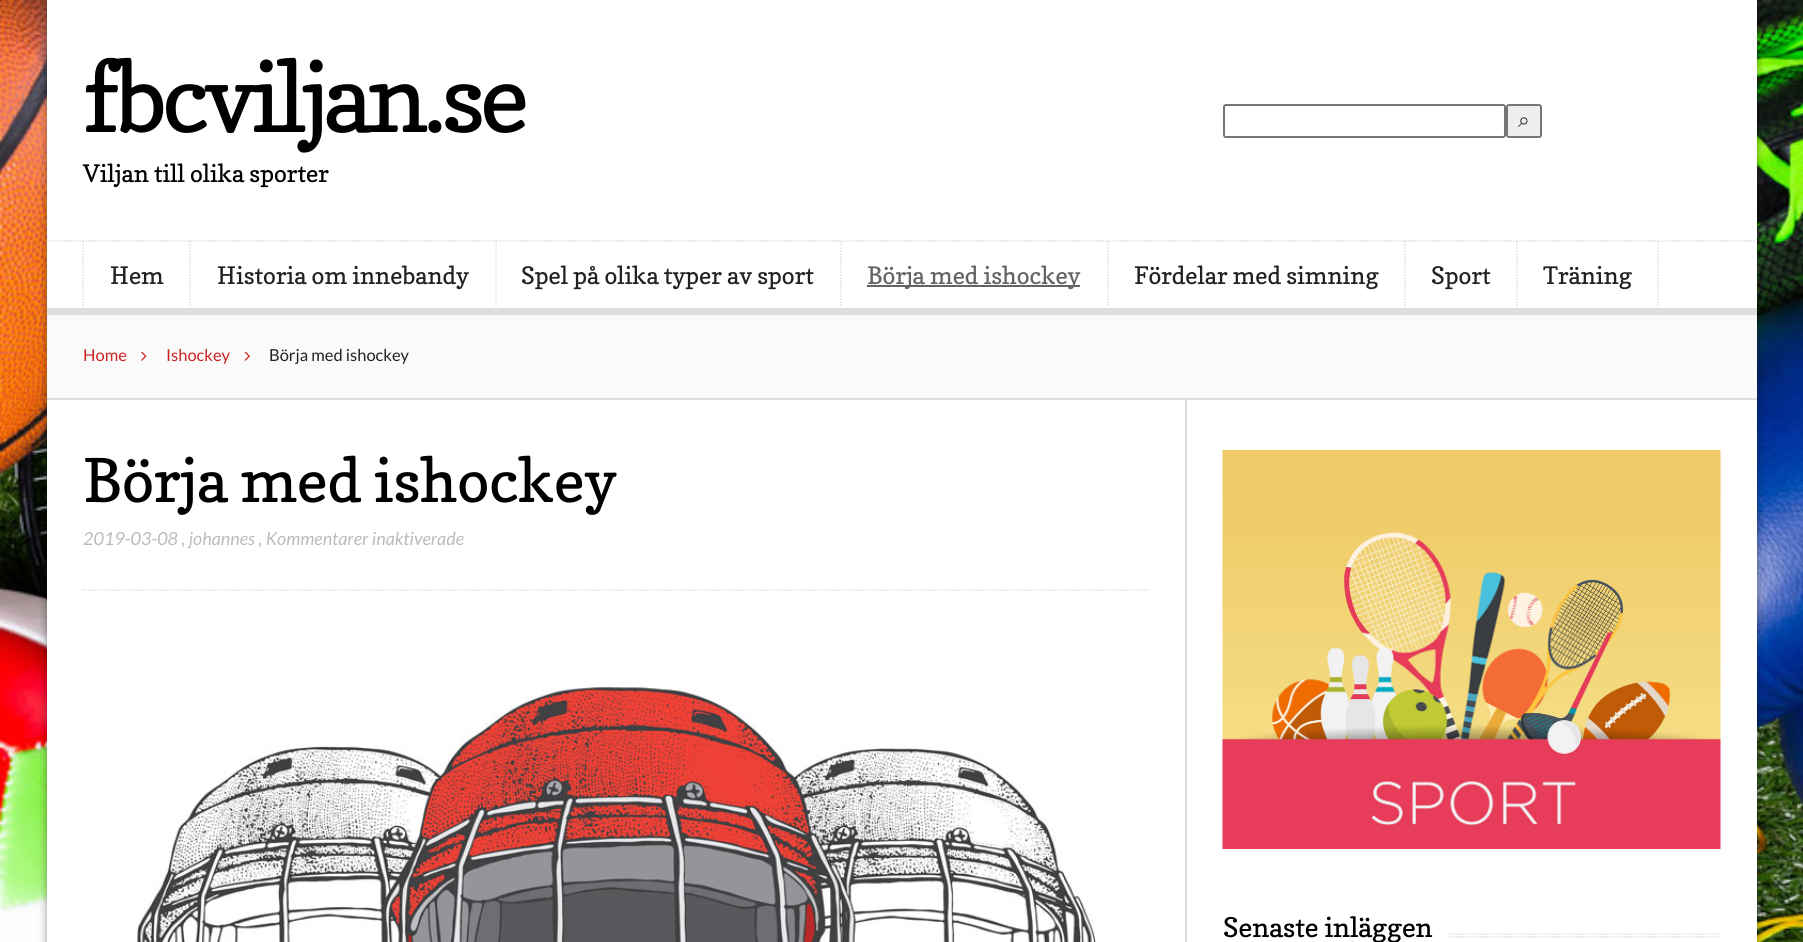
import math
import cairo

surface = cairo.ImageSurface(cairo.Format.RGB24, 1803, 942)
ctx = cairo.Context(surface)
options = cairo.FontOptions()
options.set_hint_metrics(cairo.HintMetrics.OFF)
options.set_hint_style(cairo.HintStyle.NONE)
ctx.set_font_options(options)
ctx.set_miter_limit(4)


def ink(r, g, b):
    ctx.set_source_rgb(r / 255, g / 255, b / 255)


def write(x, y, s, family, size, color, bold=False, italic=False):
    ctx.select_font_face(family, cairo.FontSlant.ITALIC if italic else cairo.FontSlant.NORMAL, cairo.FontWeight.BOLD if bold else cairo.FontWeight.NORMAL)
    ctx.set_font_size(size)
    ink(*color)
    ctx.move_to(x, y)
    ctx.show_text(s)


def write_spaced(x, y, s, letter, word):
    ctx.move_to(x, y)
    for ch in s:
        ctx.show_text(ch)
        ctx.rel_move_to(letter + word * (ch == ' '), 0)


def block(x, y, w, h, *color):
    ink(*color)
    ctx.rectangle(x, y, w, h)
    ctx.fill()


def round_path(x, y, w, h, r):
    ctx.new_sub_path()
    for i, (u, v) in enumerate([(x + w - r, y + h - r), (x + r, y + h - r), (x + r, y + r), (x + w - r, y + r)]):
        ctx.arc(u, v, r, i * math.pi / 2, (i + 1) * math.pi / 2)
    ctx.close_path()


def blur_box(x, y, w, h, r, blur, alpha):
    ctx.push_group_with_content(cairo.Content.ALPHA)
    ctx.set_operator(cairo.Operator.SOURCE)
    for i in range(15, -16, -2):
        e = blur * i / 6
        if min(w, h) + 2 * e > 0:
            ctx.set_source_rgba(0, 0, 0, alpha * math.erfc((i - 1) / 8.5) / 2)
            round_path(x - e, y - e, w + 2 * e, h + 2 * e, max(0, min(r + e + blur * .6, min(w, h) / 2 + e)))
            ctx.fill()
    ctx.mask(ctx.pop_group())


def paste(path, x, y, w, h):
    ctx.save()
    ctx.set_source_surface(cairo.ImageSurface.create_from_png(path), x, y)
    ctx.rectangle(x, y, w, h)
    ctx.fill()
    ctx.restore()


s1 = dict(family="Copse", size=24, color=(0, 0, 0))
s2 = dict(family="FreeSerif", size=21, color=(51, 51, 51))
s3 = dict(family="Copse", size=24, color=(34, 34, 34))
s4 = dict(family="Copse", size=24, color=(100, 100, 100))
s5 = dict(family="Lato", size=16.5, color=(204, 34, 34))
s6 = dict(family="Lato", size=16.5, color=(34, 34, 34))
s7 = dict(family="Copse", size=60, color=(0, 0, 0))
s8 = dict(family="Lato", size=18, color=(187, 187, 187), italic=True)
s9 = dict(family="Copse", size=27, color=(0, 0, 0))

ink(255, 255, 255)
ctx.paint()
paste("pic1.png", 0, 0, 1803, 942)
ink(0, 0, 0)
blur_box(47, 0, 1710, 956, 0, 4.5, 0.4)
block(47, 0, 1710, 942, 255, 255, 255)
ctx.select_font_face("Copse")
ctx.set_font_size(96)
ink(0, 0, 0)
write_spaced(83, 132, "fbcviljan.se", -4.75, 0)
write(83, 182, "Viljan till olika sporter", **s1)
round_path(1224, 105, 281, 32, 2)
ink(118, 118, 118)
ctx.stroke()
ink(239, 239, 239)
round_path(1507, 105, 34, 32, 2)
ctx.fill_preserve()
ink(118, 118, 118)
ctx.stroke()
write(1518, 127, "⌕", **s2)
ctx.new_path()
ctx.move_to(46.5, 241)
ctx.line_to(1756.5, 241)
ink(221, 221, 221)
ctx.set_line_width(1.5)
ctx.set_dash([1.5, 1.5])
ctx.stroke()
ctx.new_path()
ctx.move_to(83, 241.5)
ctx.line_to(83, 307.5)
ctx.stroke()
write(110, 284, "Hem", **s3)
ctx.new_path()
ctx.move_to(190, 241.5)
ctx.line_to(190, 307.5)
ink(221, 221, 221)
ctx.stroke()
write(217, 284, "Historia om innebandy", **s3)
ctx.new_path()
ctx.move_to(496, 241.5)
ctx.line_to(496, 307.5)
ink(221, 221, 221)
ctx.stroke()
write(521, 284, "Spel på olika typer av sport", **s3)
ctx.new_path()
ctx.move_to(841, 241.5)
ctx.line_to(841, 307.5)
ink(221, 221, 221)
ctx.stroke()
block(867, 285, 213, 2, 100, 100, 100)
write(867, 284, "Börja med ishockey", **s4)
ctx.new_path()
ctx.move_to(1108, 241.5)
ctx.line_to(1108, 307.5)
ink(221, 221, 221)
ctx.stroke()
write(1134, 284, "Fördelar med simning", **s3)
ctx.new_path()
ctx.move_to(1405, 241.5)
ctx.line_to(1405, 307.5)
ink(221, 221, 221)
ctx.stroke()
write(1431, 284, "Sport", **s3)
ctx.new_path()
ctx.move_to(1658, 241.5)
ctx.line_to(1658, 307.5)
ink(221, 221, 221)
ctx.stroke()
ctx.new_path()
ctx.move_to(1517, 241.5)
ctx.line_to(1517, 307.5)
ctx.stroke()
write(1543, 284, "Träning", **s3)
block(47, 308, 1710, 7, 221, 221, 221)
block(47, 315, 1710, 83, 250, 250, 250)
block(47, 398, 1710, 2, 221, 221, 221)
write(83, 361, "Home", **s5)
paste("pic2.png", 141, 351, 6, 10)
write(166, 361, "Ishockey", **s5)
paste("pic3.png", 244, 351, 6, 10)
write(269, 361, "Börja med ishockey", **s6)
ctx.new_path()
ctx.move_to(82.5, 590)
ctx.line_to(1150.5, 590)
ink(221, 221, 221)
ctx.stroke()
write(83, 502, "Börja med ishockey", **s7)
write(83, 545, "2019-03-08 , johannes , Kommentarer inaktiverade", **s8)
paste("pic4.png", 135, 687, 962, 255)
block(1185, 400, 2, 542, 221, 221, 221)
paste("pic5.png", 1222, 450, 499, 399)
ctx.new_path()
ctx.move_to(1222.5, 934)
ctx.line_to(1720.5, 934)
ctx.stroke()
ctx.new_path()
ctx.move_to(1222.5, 937)
ctx.line_to(1720.5, 937)
ctx.stroke()
block(1223, 933, 225, 5, 255, 255, 255)
write(1223, 937, "Senaste inläggen", **s9)
surface.write_to_png("screenshot.png")
